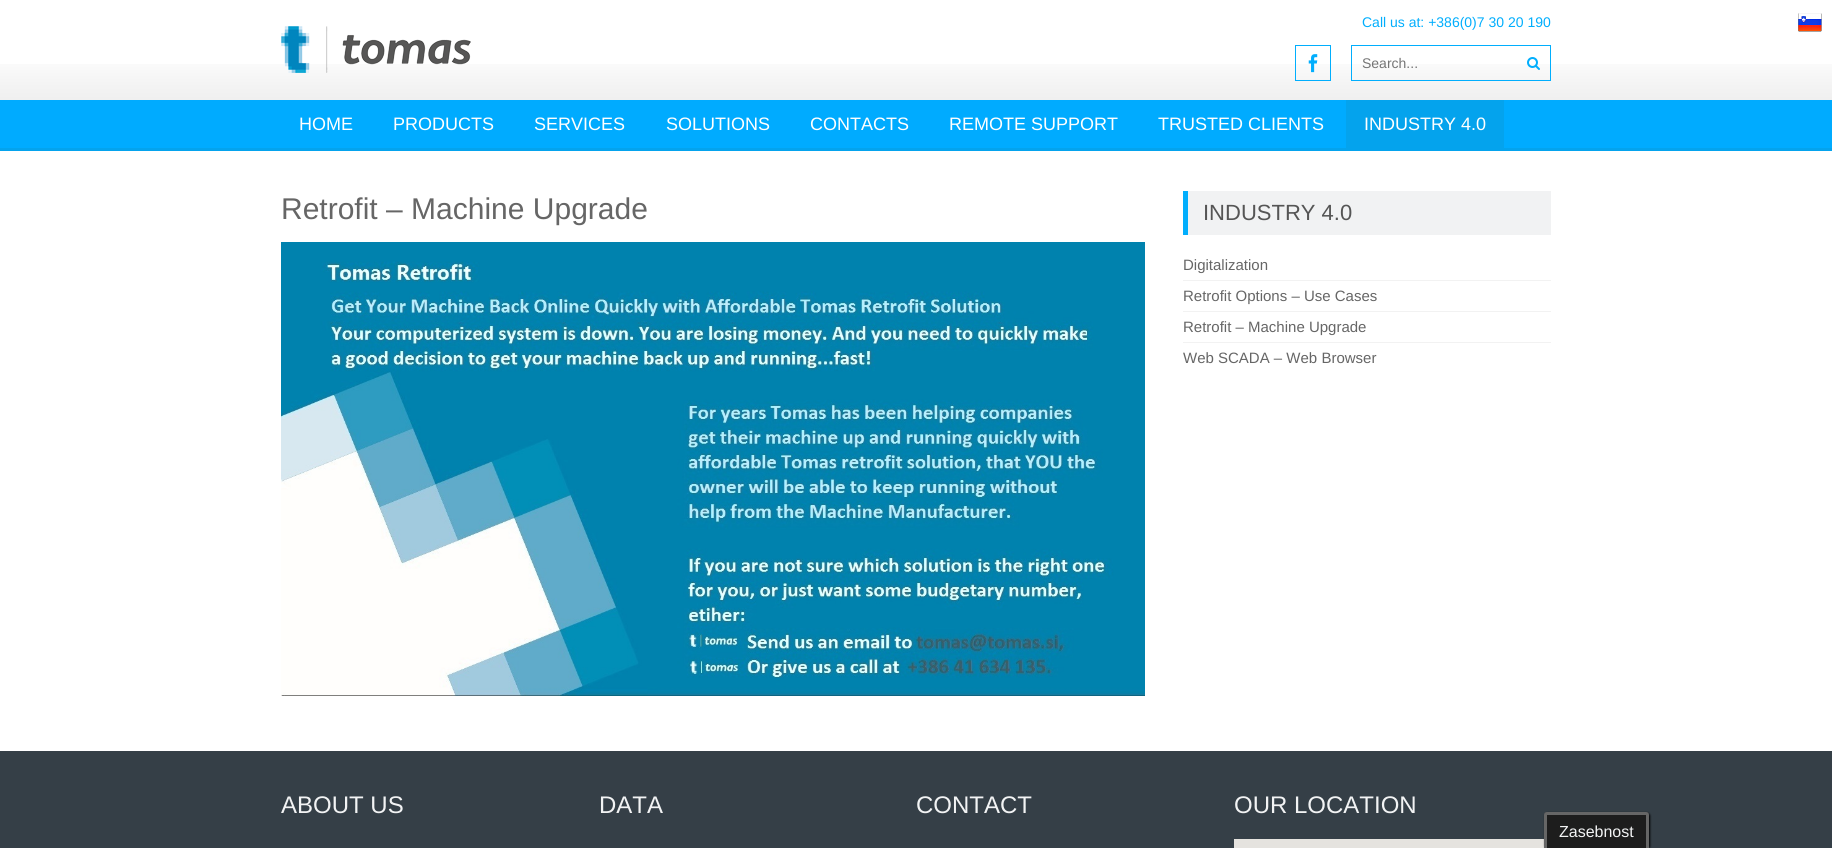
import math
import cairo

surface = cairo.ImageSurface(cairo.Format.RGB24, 1832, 848)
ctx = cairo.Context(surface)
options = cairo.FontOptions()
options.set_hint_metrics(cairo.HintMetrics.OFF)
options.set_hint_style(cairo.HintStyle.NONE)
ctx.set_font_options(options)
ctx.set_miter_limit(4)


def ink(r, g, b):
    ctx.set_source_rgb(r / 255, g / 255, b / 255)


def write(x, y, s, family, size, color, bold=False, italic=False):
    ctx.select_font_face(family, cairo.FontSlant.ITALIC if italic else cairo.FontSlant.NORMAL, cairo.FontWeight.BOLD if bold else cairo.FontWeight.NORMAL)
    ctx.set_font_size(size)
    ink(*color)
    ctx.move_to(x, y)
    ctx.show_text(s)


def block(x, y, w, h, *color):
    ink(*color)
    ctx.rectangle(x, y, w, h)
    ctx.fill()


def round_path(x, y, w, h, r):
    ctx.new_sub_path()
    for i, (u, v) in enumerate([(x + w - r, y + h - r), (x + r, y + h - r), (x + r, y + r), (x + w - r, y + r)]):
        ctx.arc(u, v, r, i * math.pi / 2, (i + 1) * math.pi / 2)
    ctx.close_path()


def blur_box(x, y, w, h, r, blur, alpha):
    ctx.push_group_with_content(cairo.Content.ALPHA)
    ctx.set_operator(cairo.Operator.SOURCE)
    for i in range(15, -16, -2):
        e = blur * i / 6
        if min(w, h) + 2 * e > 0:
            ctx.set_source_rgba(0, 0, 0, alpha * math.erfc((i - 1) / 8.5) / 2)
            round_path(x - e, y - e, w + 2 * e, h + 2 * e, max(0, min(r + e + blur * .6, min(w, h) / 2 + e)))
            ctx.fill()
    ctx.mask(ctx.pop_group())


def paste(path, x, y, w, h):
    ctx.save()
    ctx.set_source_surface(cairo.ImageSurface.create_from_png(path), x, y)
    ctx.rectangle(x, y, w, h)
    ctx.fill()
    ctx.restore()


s1 = dict(family="Liberation Sans", size=14, color=(1, 174, 253))
s2 = dict(family="Liberation Sans", size=14, color=(117, 117, 117))
s3 = dict(family="Liberation Sans", size=18, color=(255, 255, 255))
s4 = dict(family="Liberation Sans", size=30, color=(102, 102, 102))
s5 = dict(family="Liberation Sans", size=22, color=(85, 85, 85))
s6 = dict(family="Liberation Sans", size=15, color=(102, 102, 102))
s7 = dict(family="Liberation Sans", size=24, color=(242, 243, 244))
s8 = dict(family="Liberation Sans", size=16, color=(242, 243, 244))

ink(255, 255, 255)
ctx.paint()
paste("pic1.png", 0, 64, 1832, 36)
paste("pic2.png", 281, 26, 190, 47)
write(1362, 27, "Call us at: +386(0)7 30 20 190", **s1)
ctx.rectangle(1295.5, 45.5, 35, 35)
ctx.set_line_width(1)
ctx.stroke()
paste("pic3.png", 1308, 54, 10, 19)
ctx.rectangle(1351.5, 45.5, 199, 35)
ctx.stroke()
write(1362, 68, "Search...", **s2)
paste("pic4.png", 1527, 57, 13, 13)
block(0, 100, 1832, 48, 0, 171, 255)
block(0, 148, 1832, 3, 4, 163, 237)
write(299, 130, "HOME", **s3)
write(393, 130, "PRODUCTS", **s3)
write(534, 130, "SERVICES", **s3)
write(666, 130, "SOLUTIONS", **s3)
write(810, 130, "CONTACTS", **s3)
write(949, 130, "REMOTE SUPPORT", **s3)
write(1158, 130, "TRUSTED CLIENTS", **s3)
block(1346, 100, 158, 48, 4, 163, 237)
write(1364, 130, "INDUSTRY 4.0", **s3)
write(281, 219, "Retrofit – Machine Upgrade", **s4)
paste("pic5.png", 281, 242, 864, 454)
block(1188, 191, 363, 44, 241, 242, 243)
block(1183, 191, 5, 44, 1, 174, 253)
write(1203, 220, "INDUSTRY 4.0", **s5)
block(1183, 280, 368, 1, 242, 242, 242)
write(1183, 270, "Digitalization", **s6)
block(1183, 311, 368, 1, 242, 242, 242)
write(1183, 301, "Retrofit Options – Use Cases", **s6)
block(1183, 342, 368, 1, 242, 242, 242)
write(1183, 332, "Retrofit – Machine Upgrade", **s6)
write(1183, 363, "Web SCADA – Web Browser", **s6)
block(0, 751, 1832, 97, 53, 63, 71)
write(281, 813, "ABOUT US", **s7)
write(599, 813, "DATA", **s7)
write(916, 813, "CONTACT", **s7)
write(1234, 813, "OUR LOCATION", **s7)
block(1234, 839, 310, 9, 229, 227, 223)
paste("pic6.png", 1798, 13, 24, 19)
ink(0, 0, 0)
blur_box(1545, 813, 105, 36, 3, 1, 1)
ink(29, 29, 29)
ctx.new_path()
ctx.move_to(1547, 812)
ctx.line_to(1646, 812)
ctx.curve_to(1647.5, 812, 1649, 813.5, 1649, 815)
ctx.line_to(1649, 848)
ctx.line_to(1544, 848)
ctx.line_to(1544, 815)
ctx.curve_to(1544, 813.5, 1545.5, 812, 1547, 812)
ctx.close_path()
ctx.fill()
ink(102, 102, 102)
ctx.set_fill_rule(cairo.FillRule.EVEN_ODD)
ctx.new_path()
ctx.move_to(1547, 812)
ctx.line_to(1646, 812)
ctx.curve_to(1648, 812, 1649, 813, 1649, 815)
ctx.line_to(1649, 848)
ctx.line_to(1544, 848)
ctx.line_to(1544, 815)
ctx.curve_to(1544, 813, 1545, 812, 1547, 812)
ctx.close_path()
ctx.move_to(1547, 815)
ctx.line_to(1646, 815)
ctx.line_to(1646, 848)
ctx.line_to(1547, 848)
ctx.close_path()
ctx.fill()
write(1559, 837, "Zasebnost", **s8)
surface.write_to_png("screenshot.png")
